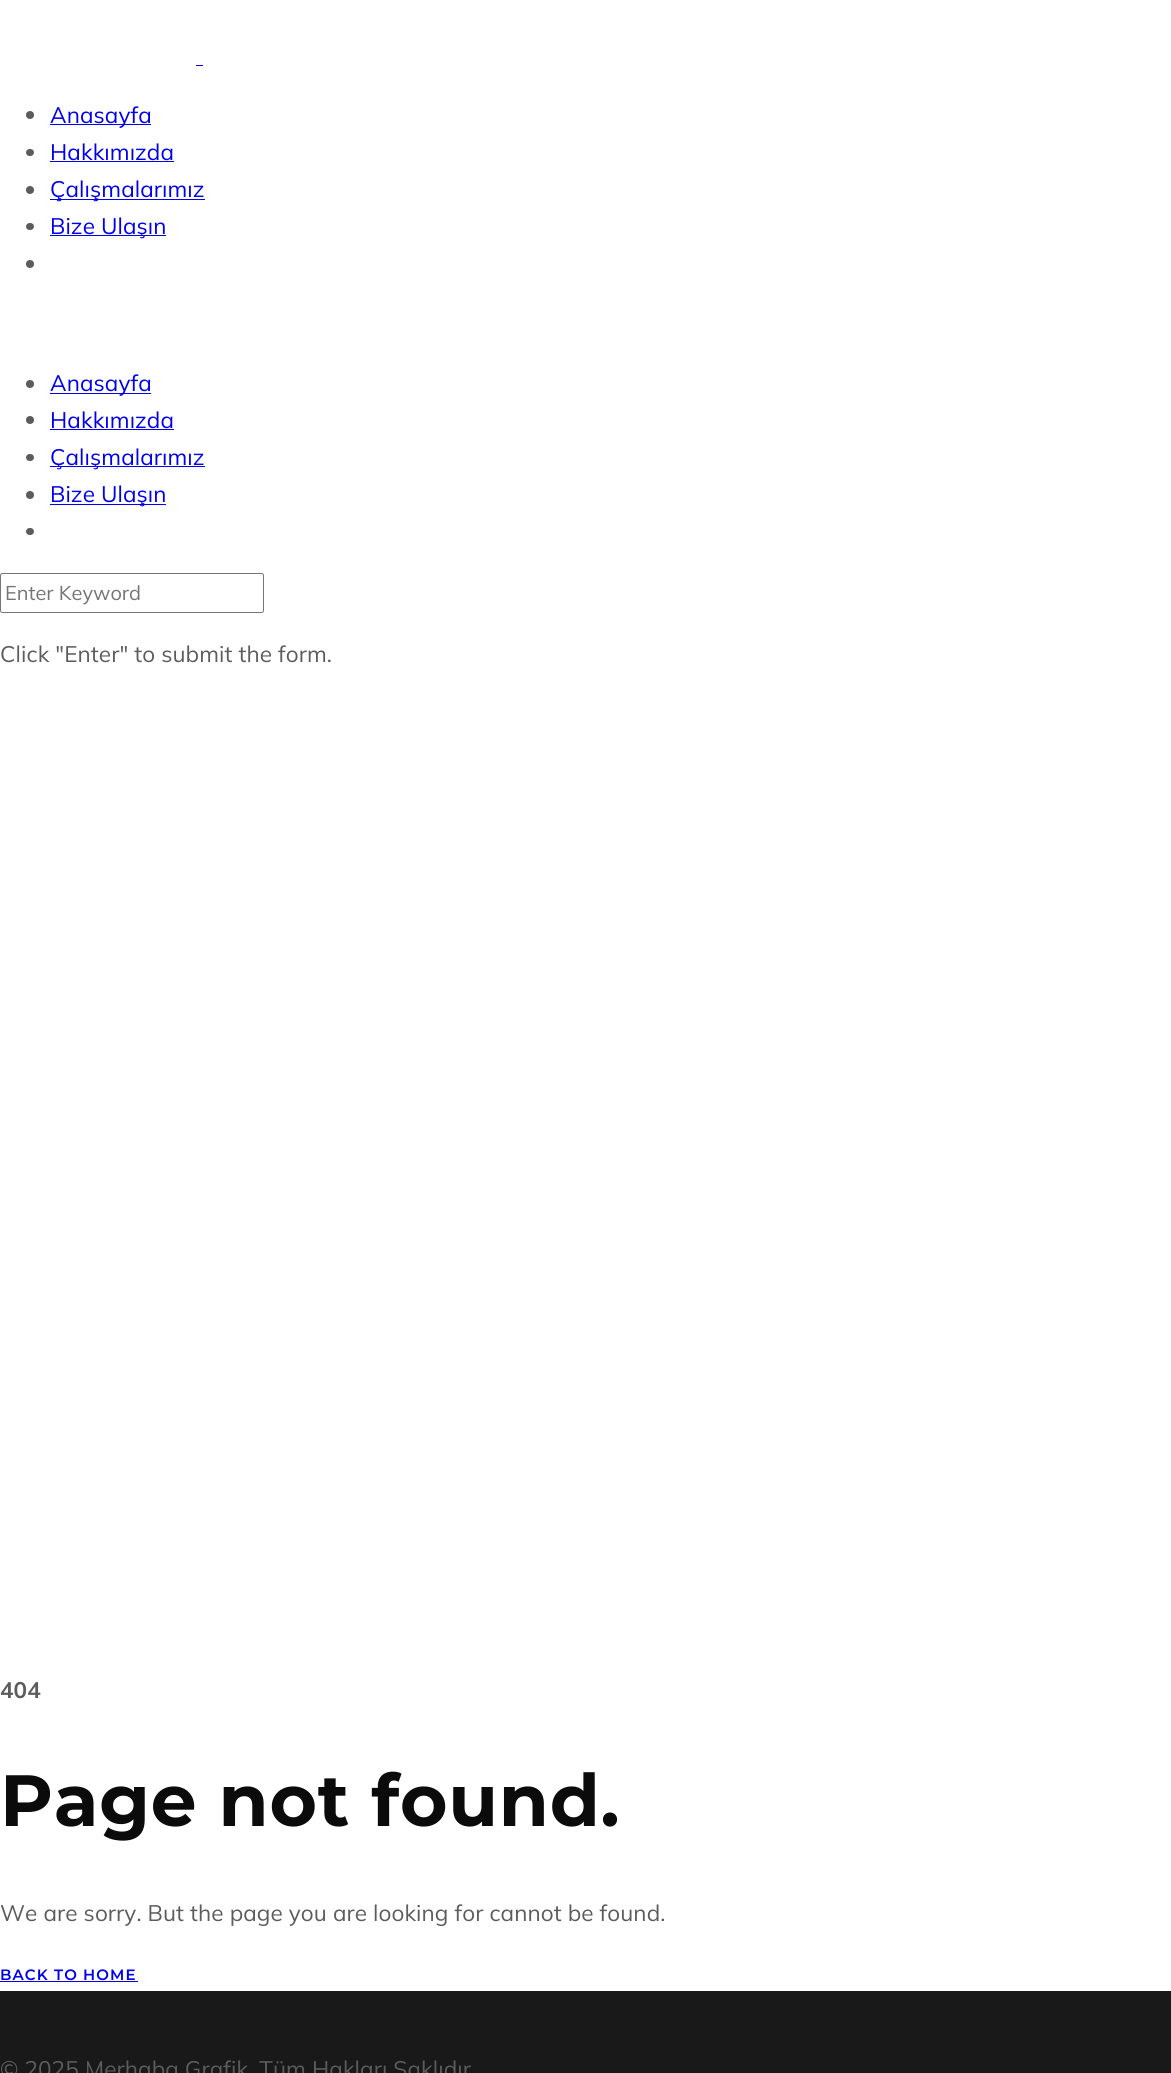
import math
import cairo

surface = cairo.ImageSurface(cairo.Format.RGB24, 1171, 2073)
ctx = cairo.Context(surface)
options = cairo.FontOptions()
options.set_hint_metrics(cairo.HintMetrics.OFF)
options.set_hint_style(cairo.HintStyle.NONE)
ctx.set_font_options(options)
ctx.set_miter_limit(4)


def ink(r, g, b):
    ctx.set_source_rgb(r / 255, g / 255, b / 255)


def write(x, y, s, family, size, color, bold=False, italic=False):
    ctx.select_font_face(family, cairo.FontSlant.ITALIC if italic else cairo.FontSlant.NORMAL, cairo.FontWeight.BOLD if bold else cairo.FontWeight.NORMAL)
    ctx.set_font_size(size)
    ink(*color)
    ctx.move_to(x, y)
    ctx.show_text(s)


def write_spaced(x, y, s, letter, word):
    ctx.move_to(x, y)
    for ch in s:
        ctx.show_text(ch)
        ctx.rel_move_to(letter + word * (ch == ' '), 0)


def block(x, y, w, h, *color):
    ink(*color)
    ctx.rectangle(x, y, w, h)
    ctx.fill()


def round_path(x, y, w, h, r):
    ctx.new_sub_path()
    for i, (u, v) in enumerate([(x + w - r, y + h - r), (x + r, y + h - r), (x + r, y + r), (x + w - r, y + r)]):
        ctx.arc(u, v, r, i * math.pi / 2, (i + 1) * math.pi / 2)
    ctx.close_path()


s1 = dict(family="Mulish", size=20, color=(117, 117, 117))

ink(255, 255, 255)
ctx.paint()
block(196, 65, 7, 1, 0, 0, 238)
ink(92, 92, 92)
ctx.arc(30, 115, 4, 0, 2 * math.pi)
ctx.fill()
block(50, 124, 101, 1, 0, 0, 238)
ctx.select_font_face("Mulish")
ctx.set_font_size(22.5)
write_spaced(50, 123, "Anasayfa", 0.1, 0)
ink(92, 92, 92)
round_path(26, 149, 8, 7, 3.5)
ctx.fill()
ink(0, 0, 238)
write_spaced(50, 160, "Hakkımızda", 0.1, 0)
block(50, 161, 124, 1, 0, 0, 238)
ink(92, 92, 92)
ctx.new_path()
ctx.arc(30, 190, 4, 0, 2 * math.pi)
ctx.fill()
block(50, 199, 155, 1, 0, 0, 238)
write_spaced(50, 197, "Çalışmalarımız", 0.1, 0)
ink(92, 92, 92)
round_path(26, 223, 8, 7, 3.5)
ctx.fill()
block(50, 235, 116, 1, 0, 0, 238)
write_spaced(50, 234, "Bize Ulaşın", 0.1, 0)
ink(92, 92, 92)
ctx.new_path()
ctx.arc(30, 264, 4, 0, 2 * math.pi)
ctx.fill()
ctx.arc(30, 384, 4, 0, 2 * math.pi)
ctx.fill()
block(50, 393, 101, 1, 0, 0, 238)
write_spaced(50, 391, "Anasayfa", 0.1, 0)
ink(92, 92, 92)
ctx.new_path()
ctx.arc(30, 420, 4, 0, 2 * math.pi)
ctx.fill()
ink(0, 0, 238)
write_spaced(50, 428, "Hakkımızda", 0.1, 0)
block(50, 429, 124, 1, 0, 0, 238)
ink(92, 92, 92)
round_path(26, 454, 8, 7, 3.5)
ctx.fill()
block(50, 466, 155, 1, 0, 0, 238)
write_spaced(50, 465, "Çalışmalarımız", 0.1, 0)
ink(92, 92, 92)
ctx.new_path()
ctx.arc(30, 495, 4, 0, 2 * math.pi)
ctx.fill()
block(50, 504, 116, 1, 0, 0, 238)
write_spaced(50, 502, "Bize Ulaşın", 0.1, 0)
ink(92, 92, 92)
round_path(26, 528, 8, 7, 3.5)
ctx.fill()
round_path(0.5, 573.5, 263, 39, 2)
ink(118, 118, 118)
ctx.set_line_width(1)
ctx.stroke()
write(5, 600, "Enter Keyword", **s1)
ctx.set_font_size(22.5)
ink(92, 92, 92)
write_spaced(0, 662, "Click \"Enter\" to submit the form.", 0.1, 0)
ctx.select_font_face("Mulish", cairo.FontSlant.NORMAL, cairo.FontWeight.BOLD)
write_spaced(0, 1698, "404", 0.1, 0)
ctx.select_font_face("Montserrat", cairo.FontSlant.NORMAL, cairo.FontWeight.BOLD)
ctx.set_font_size(72.5)
ink(11, 11, 11)
write_spaced(0, 1826, "Page not found.", 0.75, 0)
ctx.select_font_face("Mulish")
ctx.set_font_size(22.5)
ink(92, 92, 92)
write_spaced(0, 1921, "We are sorry. But the page you are looking for cannot be found.", 0.1, 0)
ctx.select_font_face("Montserrat SemiBold")
ctx.set_font_size(15)
ink(0, 0, 238)
write_spaced(0, 1980, "BACK TO HOME", 1.1, 0)
block(0, 1981, 138, 1, 0, 0, 238)
block(0, 1991, 1171, 82, 25, 25, 25)
ctx.select_font_face("Mulish")
ctx.set_font_size(22.5)
ink(92, 92, 92)
write_spaced(0, 2077, "© 2025 Merhaba Grafik. Tüm Hakları Saklıdır.", 0.1, 0)
surface.write_to_png("screenshot.png")
